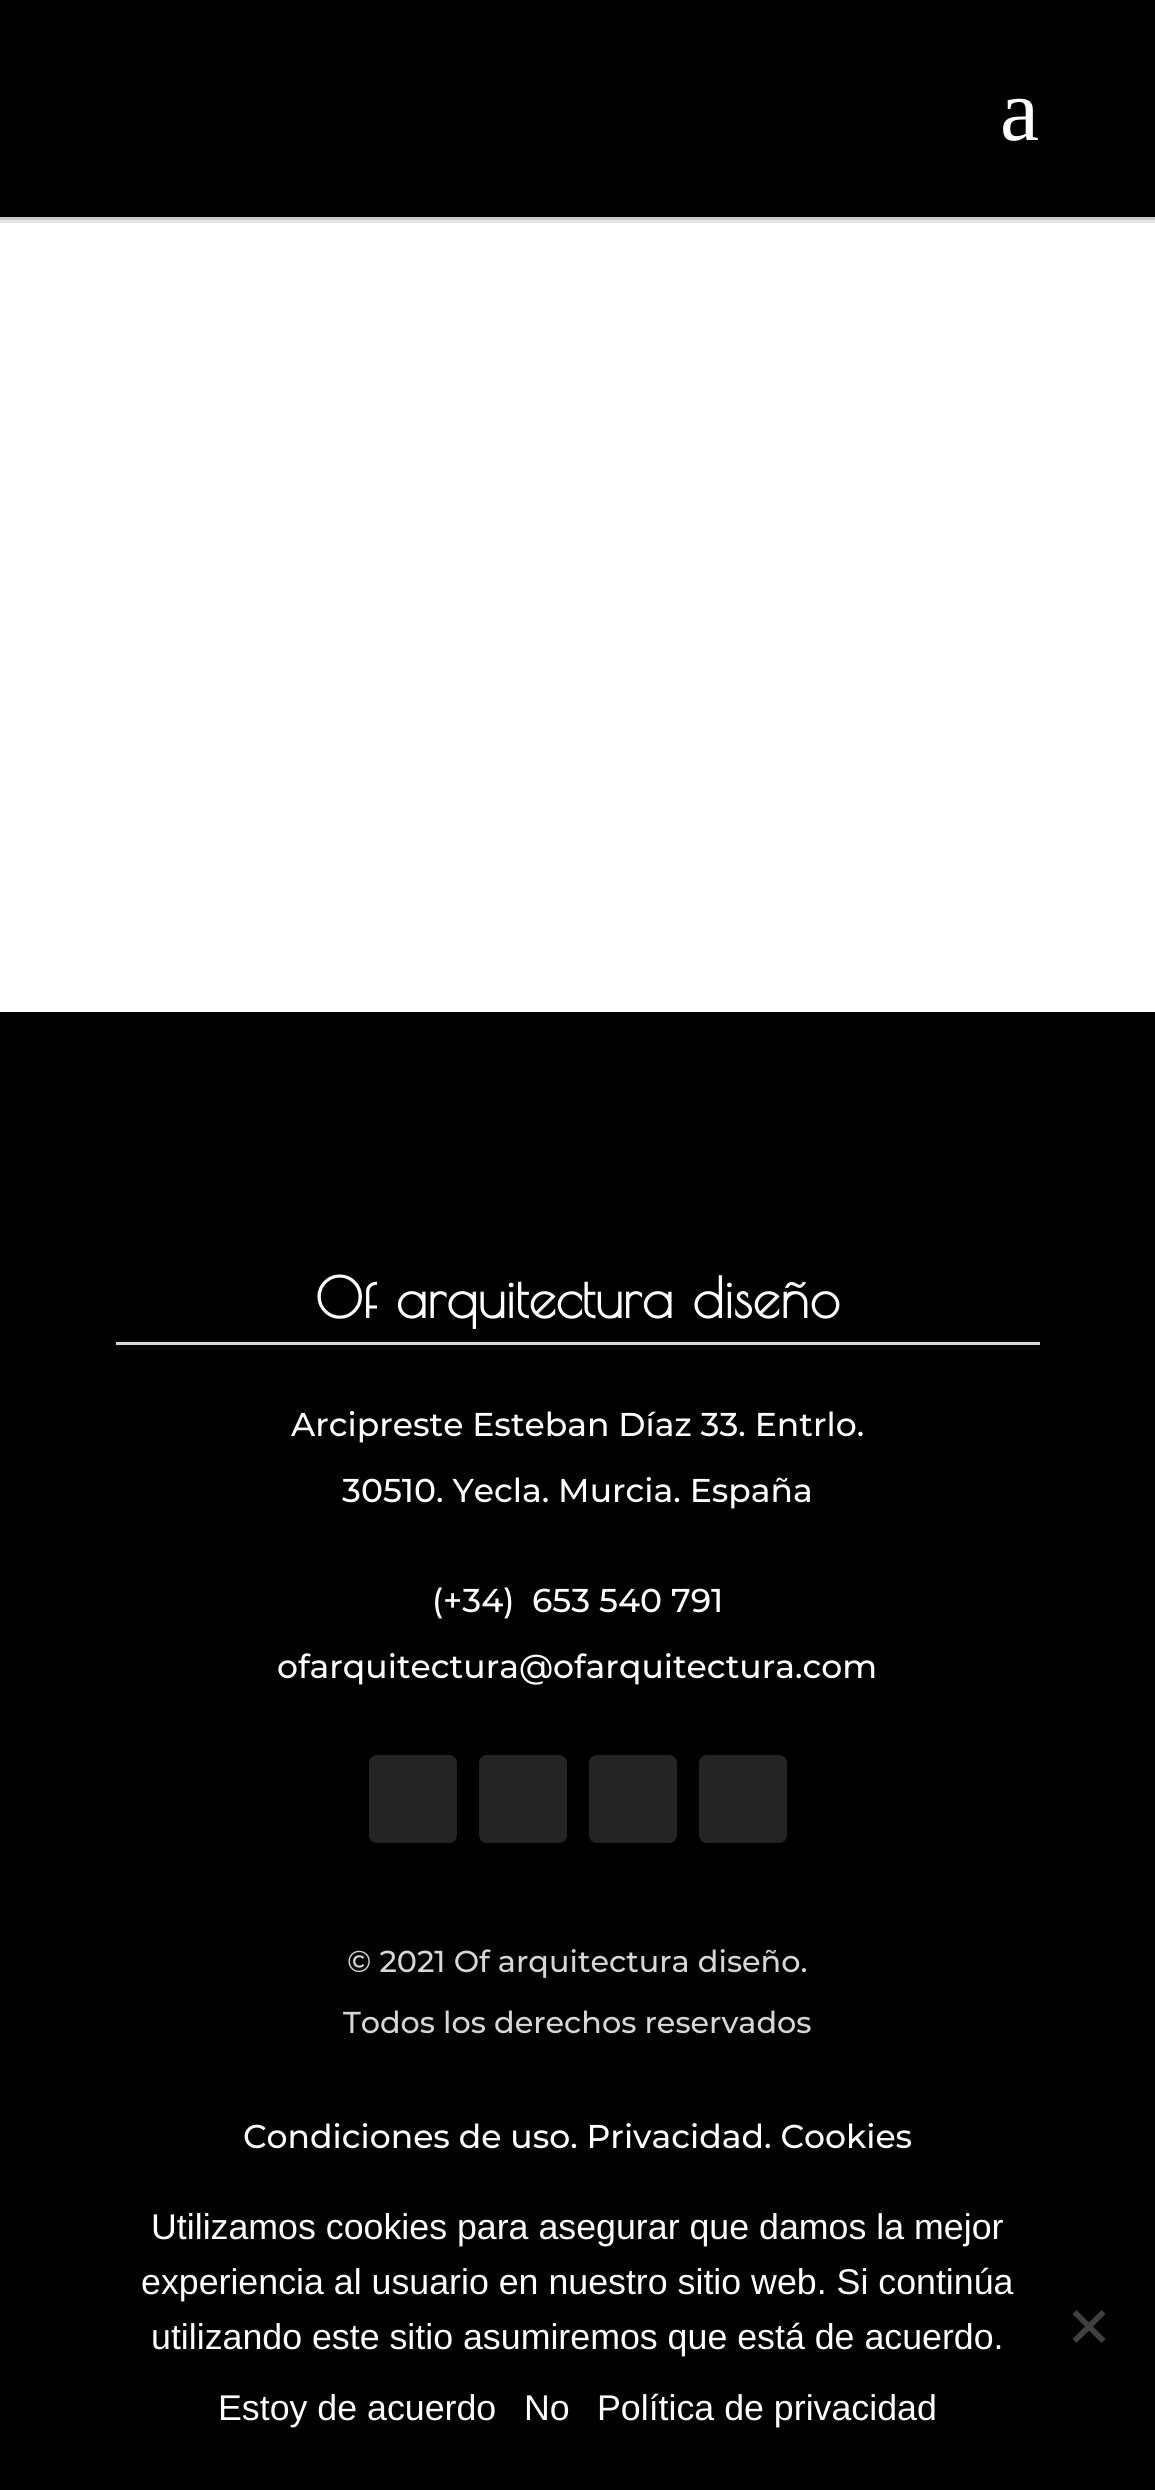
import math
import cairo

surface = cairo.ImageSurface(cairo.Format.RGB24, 1155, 2490)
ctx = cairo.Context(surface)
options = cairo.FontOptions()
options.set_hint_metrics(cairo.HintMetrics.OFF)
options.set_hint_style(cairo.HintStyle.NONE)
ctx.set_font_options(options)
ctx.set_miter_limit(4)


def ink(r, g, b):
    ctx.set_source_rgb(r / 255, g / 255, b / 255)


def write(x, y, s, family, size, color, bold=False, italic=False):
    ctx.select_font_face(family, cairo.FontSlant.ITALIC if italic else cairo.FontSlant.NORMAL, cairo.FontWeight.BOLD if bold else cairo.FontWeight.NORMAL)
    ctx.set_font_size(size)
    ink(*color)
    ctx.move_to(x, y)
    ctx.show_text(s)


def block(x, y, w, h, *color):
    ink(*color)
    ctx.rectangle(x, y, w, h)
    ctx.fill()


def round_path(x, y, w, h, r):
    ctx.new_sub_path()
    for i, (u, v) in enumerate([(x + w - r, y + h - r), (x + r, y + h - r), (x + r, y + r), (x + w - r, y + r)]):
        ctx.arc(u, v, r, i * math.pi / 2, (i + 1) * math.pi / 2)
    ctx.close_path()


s1 = dict(family="Liberation Serif", size=88, color=(255, 255, 255))
s2 = dict(family="Poiret One", size=55, color=(255, 255, 255), bold=True)
s3 = dict(family="Montserrat Medium", size=33, color=(255, 255, 255))
s4 = dict(family="Montserrat Medium", size=30.25, color=(214, 214, 214))
s5 = dict(family="Liberation Sans", size=35.75, color=(255, 255, 255))

ink(0, 0, 0)
ctx.paint()
block(0, 220, 1155, 3, 230, 230, 230)
write(1000, 140, "a", **s1)
block(0, 223, 1155, 789, 255, 255, 255)
block(0, 217, 1155, 3, 201, 201, 201)
write(315, 1318, "Of arquitectura diseño", **s2)
block(116, 1342, 924, 3, 214, 214, 214)
write(291, 1436, "Arcipreste Esteban Díaz 33. Entrlo.", **s3)
write(342, 1502, "30510. Yecla. Murcia. España", **s3)
write(432, 1612, "(+34)", **s3)
write(532, 1612, "653 540 791", **s3)
write(277, 1678, "ofarquitectura@ofarquitectura.com", **s3)
ink(36, 36, 36)
round_path(369, 1755, 88, 88, 8)
ctx.fill()
round_path(479, 1755, 88, 88, 8)
ctx.fill()
round_path(589, 1755, 88, 88, 8)
ctx.fill()
round_path(699, 1755, 88, 88, 8)
ctx.fill()
write(347, 1972, "© 2021 Of arquitectura diseño.", **s4)
write(343, 2033, "Todos los derechos reservados", **s4)
write(243, 2148, "Condiciones de uso. Privacidad. Cookies", **s3)
write(151, 2239, "Utilizamos cookies para asegurar que damos la mejor", **s5)
write(141, 2294, "experiencia al usuario en nuestro sitio web. Si continúa", **s5)
write(151, 2349, "utilizando este sitio asumiremos que está de acuerdo.", **s5)
ink(64, 64, 64)
ctx.new_path()
ctx.move_to(1101.5, 2310)
ctx.line_to(1105.5, 2314)
ctx.line_to(1076.5, 2343)
ctx.line_to(1072.5, 2339)
ctx.close_path()
ctx.fill()
ctx.new_path()
ctx.move_to(1072.5, 2314)
ctx.line_to(1076.5, 2310)
ctx.line_to(1105.5, 2339)
ctx.line_to(1101.5, 2343)
ctx.close_path()
ctx.fill()
write(218, 2420, "Estoy de acuerdo", **s5)
write(524, 2420, "No", **s5)
write(597, 2420, "Política de privacidad", **s5)
surface.write_to_png("screenshot.png")
